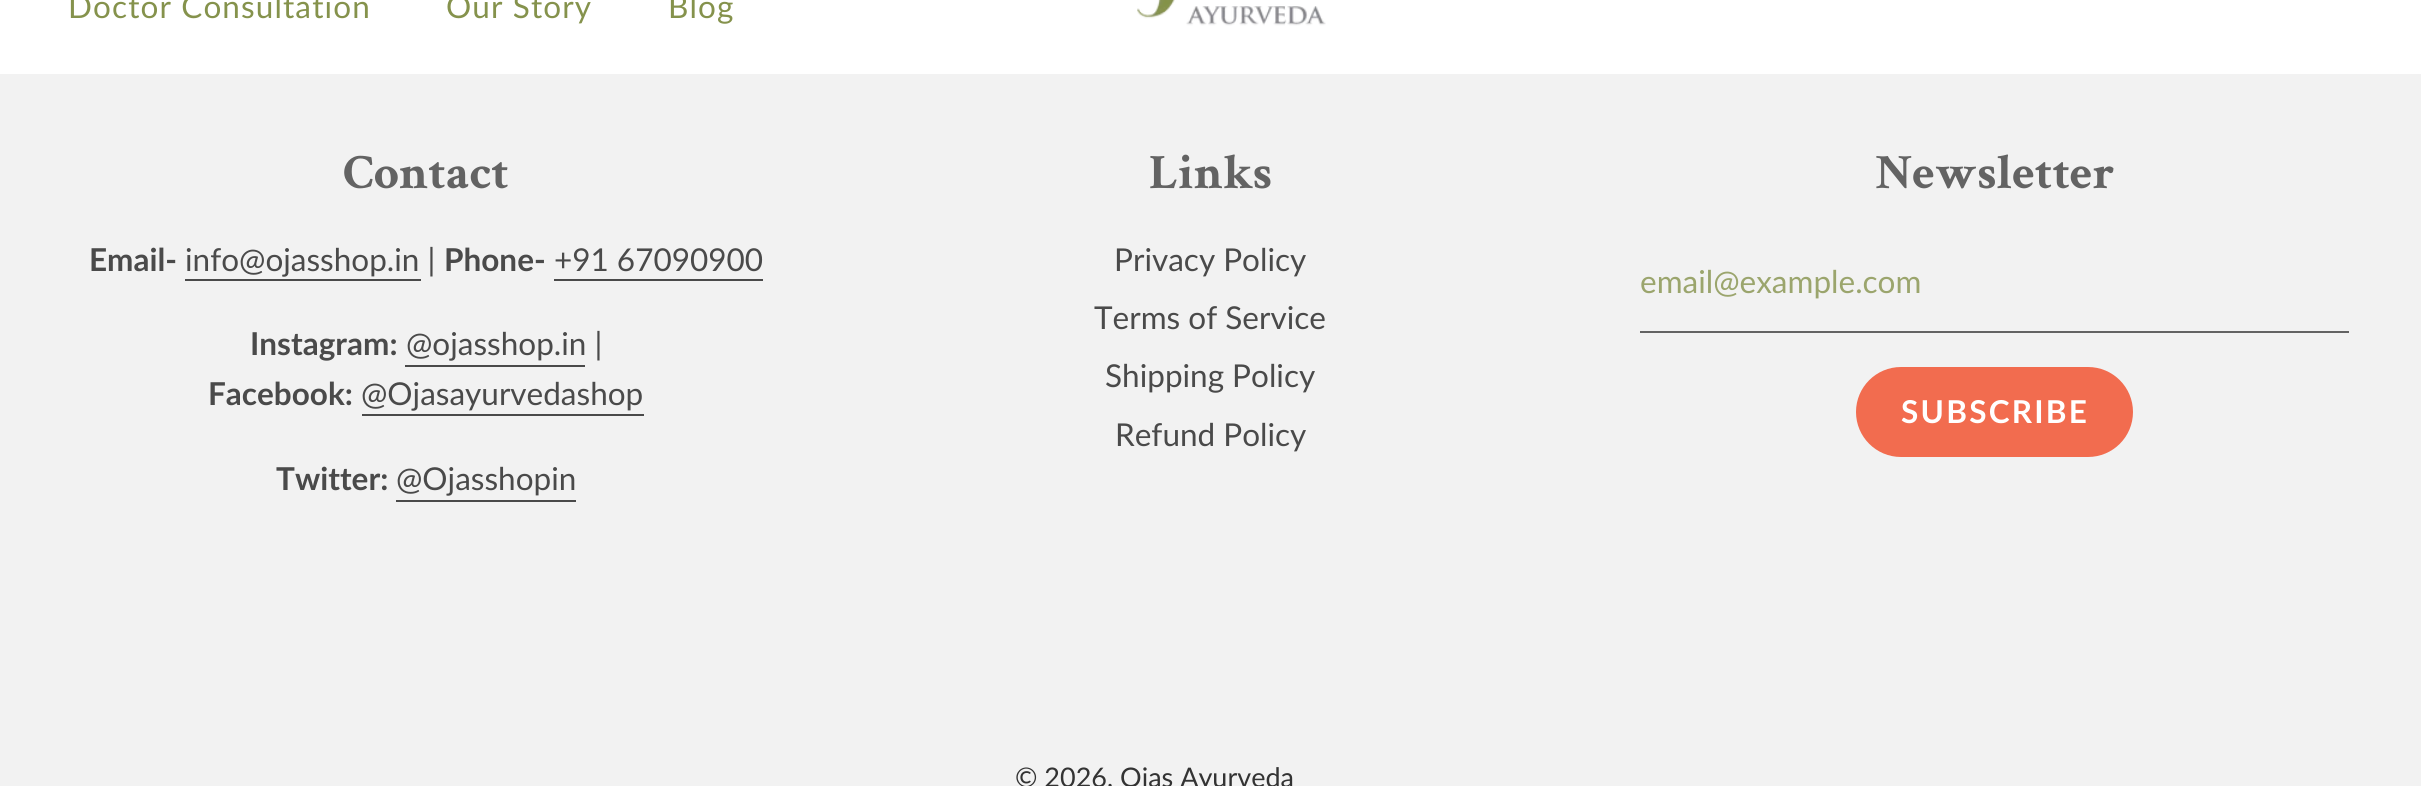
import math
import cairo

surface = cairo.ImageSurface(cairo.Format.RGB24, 2421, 786)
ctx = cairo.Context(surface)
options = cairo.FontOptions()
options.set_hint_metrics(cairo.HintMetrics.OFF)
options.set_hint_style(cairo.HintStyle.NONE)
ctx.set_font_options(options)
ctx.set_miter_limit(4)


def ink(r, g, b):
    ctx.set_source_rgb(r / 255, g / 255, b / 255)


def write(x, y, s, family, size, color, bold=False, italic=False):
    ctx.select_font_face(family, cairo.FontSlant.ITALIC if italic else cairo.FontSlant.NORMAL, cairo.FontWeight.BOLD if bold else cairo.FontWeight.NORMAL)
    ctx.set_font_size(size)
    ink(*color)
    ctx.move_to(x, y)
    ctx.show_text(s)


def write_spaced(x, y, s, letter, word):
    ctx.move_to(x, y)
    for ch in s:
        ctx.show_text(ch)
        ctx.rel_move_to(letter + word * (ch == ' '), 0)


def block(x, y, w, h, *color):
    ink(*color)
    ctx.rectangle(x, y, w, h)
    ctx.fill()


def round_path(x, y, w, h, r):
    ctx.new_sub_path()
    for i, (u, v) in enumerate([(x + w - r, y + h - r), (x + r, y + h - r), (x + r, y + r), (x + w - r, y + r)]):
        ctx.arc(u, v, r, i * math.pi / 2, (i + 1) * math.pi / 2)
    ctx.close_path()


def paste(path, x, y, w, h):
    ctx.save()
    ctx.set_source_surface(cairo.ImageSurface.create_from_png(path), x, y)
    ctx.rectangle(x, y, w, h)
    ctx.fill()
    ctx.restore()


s1 = dict(family="Crimson Text", size=49.5, color=(99, 99, 99), bold=True)
s2 = dict(family="Lato", size=31.5, color=(74, 74, 74), bold=True)
s3 = dict(family="Lato", size=31.5, color=(74, 74, 74))
s4 = dict(family="Lato", size=31.5, color=(155, 165, 109))
s5 = dict(family="Lato", size=27, color=(51, 51, 51))

ink(255, 255, 255)
ctx.paint()
ctx.select_font_face("Lato")
ctx.set_font_size(31.5)
ink(133, 146, 76)
write_spaced(68, 18, "Doctor Consultation", 1.1, 0)
write_spaced(446, 18, "Our Story", 1.1, 0)
write_spaced(668, 18, "Blog", 1.1, 0)
paste("pic1.png", 1137, 0, 189, 26)
block(0, 74, 2421, 712, 242, 242, 242)
write(343, 188, "Contact", **s1)
write(89, 271, "Email-", **s2)
write(185, 271, "info@ojasshop.in |", **s3)
block(185, 279, 236, 2, 74, 74, 74)
write(444, 271, "Phone-", **s2)
write(554, 271, "+91 67090900", **s3)
block(554, 279, 209, 2, 74, 74, 74)
write(250, 355, "Instagram:", **s2)
write(406, 355, "@ojasshop.in |", **s3)
block(405, 365, 180, 2, 74, 74, 74)
write(208, 405, "Facebook:", **s2)
write(361, 405, "@Ojasayurvedashop", **s3)
block(362, 414, 282, 2, 74, 74, 74)
write(276, 490, "Twitter:", **s2)
write(396, 490, "@Ojasshopin", **s3)
block(396, 500, 180, 2, 74, 74, 74)
write(1149, 188, "Links", **s1)
write(1114, 271, "Privacy Policy", **s3)
write(1094, 329, "Terms of Service", **s3)
write(1105, 387, "Shipping Policy", **s3)
write(1115, 446, "Refund Policy", **s3)
write(1875, 188, "Newsletter", **s1)
block(1640, 331, 709, 2, 99, 99, 99)
write(1640, 293, "email@example.com", **s4)
ink(242, 108, 79)
round_path(1856, 367, 277, 90, 45)
ctx.fill()
ctx.select_font_face("Lato", cairo.FontSlant.NORMAL, cairo.FontWeight.BOLD)
ink(255, 255, 255)
write_spaced(1901, 423, "SUBSCRIBE", 2.25, 0)
write(1015, 787, "© 2026, Ojas Ayurveda", **s5)
surface.write_to_png("screenshot.png")
